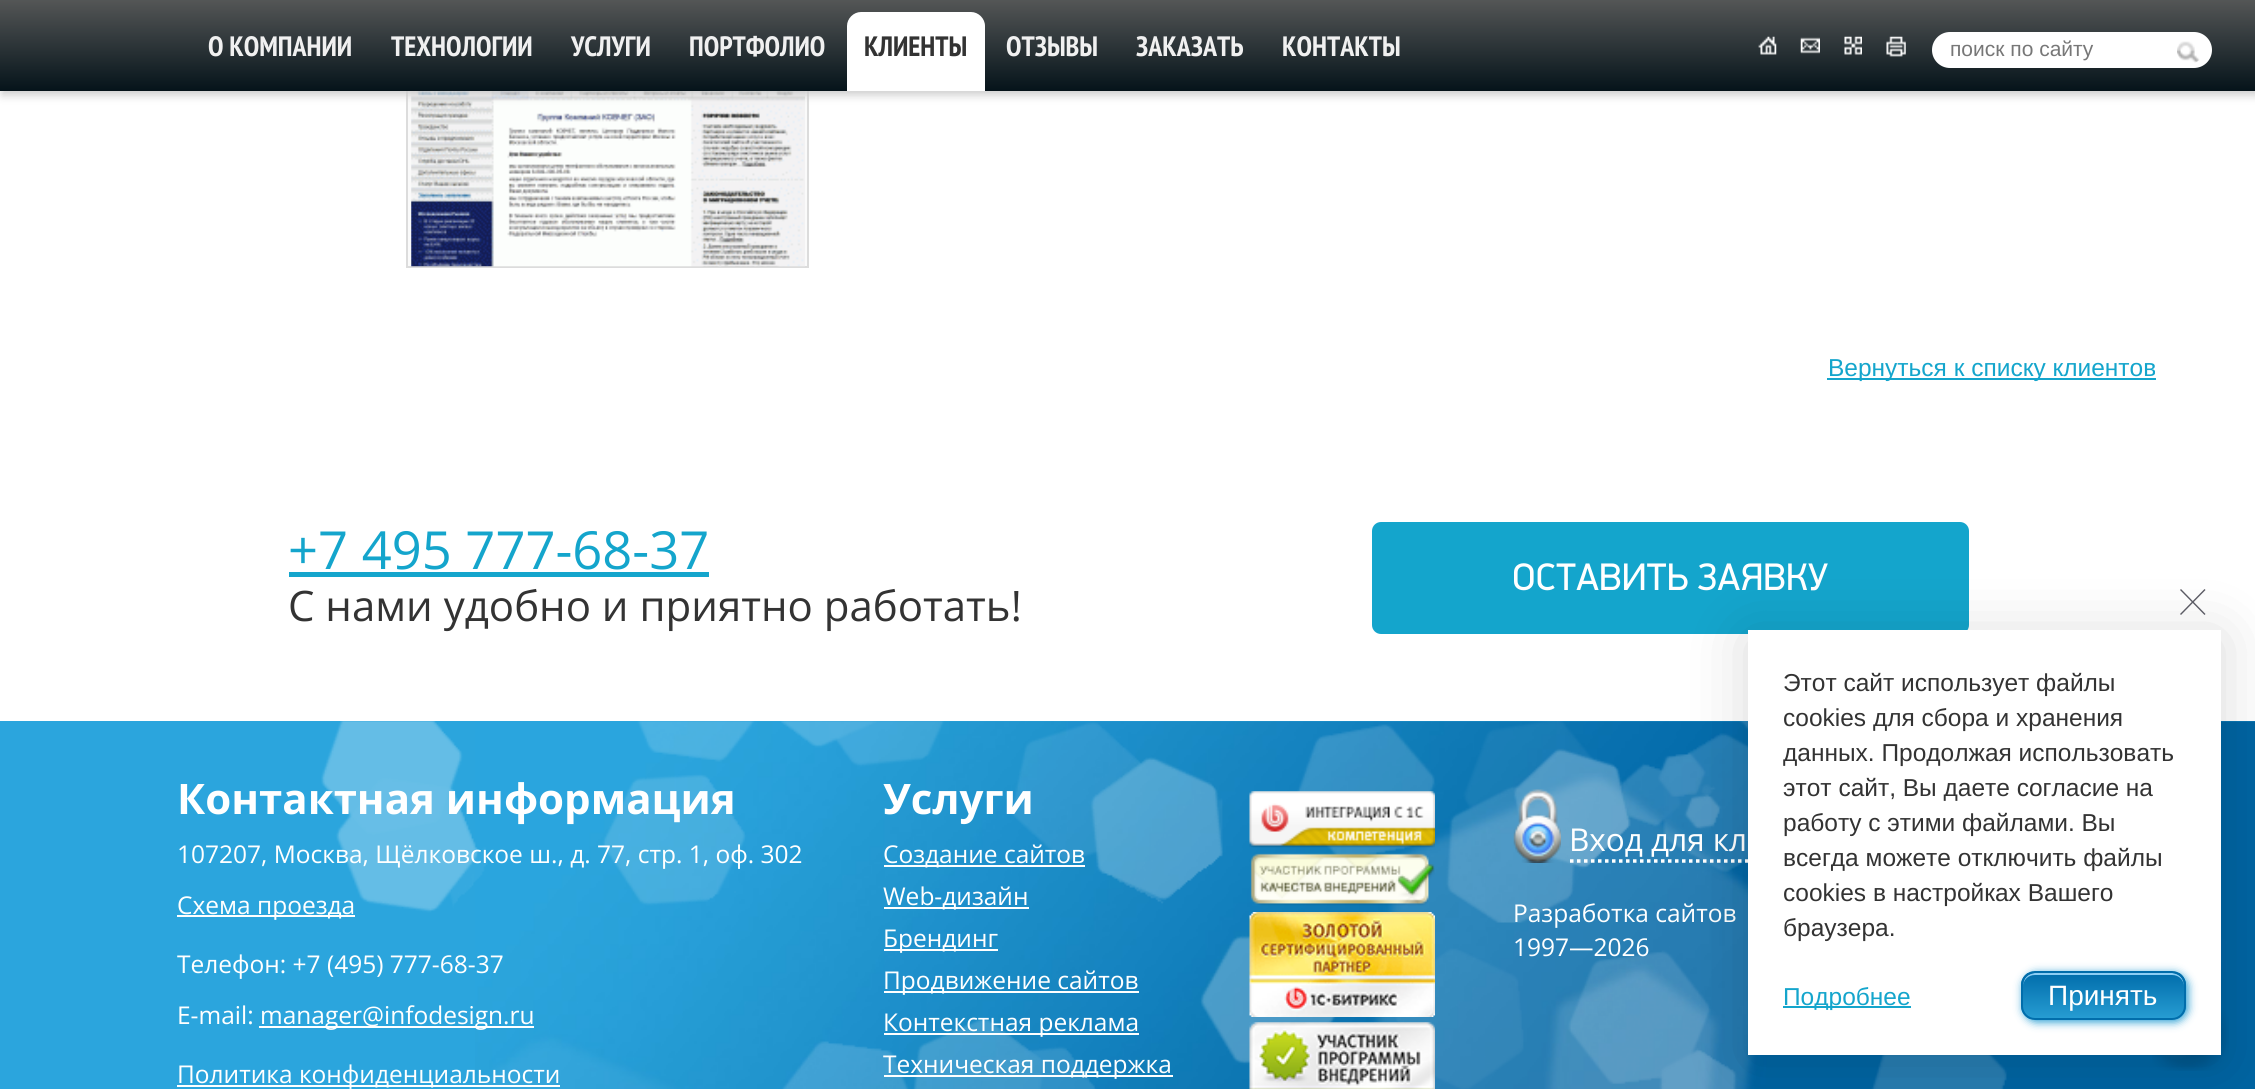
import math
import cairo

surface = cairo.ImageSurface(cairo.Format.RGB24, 2255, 1089)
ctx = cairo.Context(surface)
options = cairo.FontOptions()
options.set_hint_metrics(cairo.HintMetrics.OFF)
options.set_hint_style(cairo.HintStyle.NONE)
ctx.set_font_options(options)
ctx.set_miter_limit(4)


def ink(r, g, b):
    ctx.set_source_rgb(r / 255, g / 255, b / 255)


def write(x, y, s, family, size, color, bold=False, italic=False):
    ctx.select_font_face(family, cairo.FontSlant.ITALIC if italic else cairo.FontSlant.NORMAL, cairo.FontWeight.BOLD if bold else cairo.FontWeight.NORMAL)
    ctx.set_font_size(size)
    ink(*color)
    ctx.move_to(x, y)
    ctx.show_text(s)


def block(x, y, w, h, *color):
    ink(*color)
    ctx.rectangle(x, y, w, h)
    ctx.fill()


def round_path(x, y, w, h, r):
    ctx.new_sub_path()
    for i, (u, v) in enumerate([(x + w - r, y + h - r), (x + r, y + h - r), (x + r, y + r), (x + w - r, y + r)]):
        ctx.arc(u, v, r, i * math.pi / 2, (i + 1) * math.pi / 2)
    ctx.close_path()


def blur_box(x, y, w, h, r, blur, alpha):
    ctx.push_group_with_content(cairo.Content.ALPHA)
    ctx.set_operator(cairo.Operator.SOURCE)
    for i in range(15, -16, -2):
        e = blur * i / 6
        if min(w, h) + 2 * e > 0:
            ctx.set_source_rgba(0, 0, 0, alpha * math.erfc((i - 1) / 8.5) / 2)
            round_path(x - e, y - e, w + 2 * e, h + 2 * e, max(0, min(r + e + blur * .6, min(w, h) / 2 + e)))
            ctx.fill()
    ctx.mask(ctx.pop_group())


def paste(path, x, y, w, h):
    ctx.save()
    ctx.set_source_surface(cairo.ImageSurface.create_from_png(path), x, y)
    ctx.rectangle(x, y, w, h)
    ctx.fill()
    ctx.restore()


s1 = dict(family="PT Sans Narrow", size=28, color=(240, 240, 240), bold=True)
s2 = dict(family="PT Sans Narrow", size=28, color=(51, 51, 51), bold=True)
s3 = dict(family="Liberation Sans", size=21, color=(119, 119, 119))
s4 = dict(family="Liberation Sans", size=24.5, color=(20, 165, 204))
s5 = dict(family="Open Sans", size=52.5, color=(20, 165, 204))
s6 = dict(family="Open Sans", size=42, color=(51, 51, 51))
s7 = dict(family="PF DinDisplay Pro", size=38.5, color=(255, 255, 255))
s8 = dict(family="Open Sans", size=42, color=(255, 255, 255), bold=True)
s9 = dict(family="Open Sans", size=24.5, color=(255, 255, 255))
s10 = dict(family="Open Sans", size=31.5, color=(255, 255, 255))
s11 = dict(family="Liberation Sans", size=24.5, color=(51, 51, 51))
s12 = dict(family="Liberation Sans", size=28, color=(255, 255, 255))

ink(255, 255, 255)
ctx.paint()
block(408, 91, 399, 175, 250, 250, 250)
ctx.rectangle(407, 6, 401, 261)
ink(220, 220, 220)
ctx.stroke()
paste("pic6.png", 411, 91, 394, 176)
ink(204, 204, 204)
blur_box(2, 4, 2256, 91, 0, 4.5, 1)
gradient = cairo.LinearGradient(1128, 0, 1128, 91)
gradient.add_color_stop_rgba(0, 0.329, 0.337, 0.337, 1)
gradient.add_color_stop_rgba(1, 0.02, 0.075, 0.102, 1)
ctx.set_source(gradient)
ctx.rectangle(0, 0, 2255, 91)
ctx.fill()
write(208, 56, "О КОМПАНИИ", **s1)
write(391, 56, "ТЕХНОЛОГИИ", **s1)
write(571, 56, "УСЛУГИ", **s1)
write(689, 56, "ПОРТФОЛИО", **s1)
ink(255, 255, 255)
ctx.new_path()
ctx.move_to(861, 12)
ctx.line_to(971, 12)
ctx.curve_to(978.5, 12, 985, 18.5, 985, 26)
ctx.line_to(985, 91)
ctx.line_to(847, 91)
ctx.line_to(847, 26)
ctx.curve_to(847, 18.5, 853.5, 12, 861, 12)
ctx.close_path()
ctx.fill()
write(864, 56, "КЛИЕНТЫ", **s2)
write(1006, 56, "ОТЗЫВЫ", **s1)
write(1136, 56, "ЗАКАЗАТЬ", **s1)
write(1282, 56, "КОНТАКТЫ", **s1)
paste("pic1.png", 1758, 36, 19, 19)
paste("pic2.png", 1800, 37, 20, 17)
paste("pic3.png", 1844, 36, 18, 19)
paste("pic4.png", 1886, 36, 20, 21)
ink(255, 255, 255)
round_path(1932, 32, 280, 36, 18)
ctx.fill()
write(1950, 56, "поиск по сайту", **s3)
paste("pic5.png", 2177, 41, 23, 22)
block(1827, 378, 329, 2, 20, 165, 204)
write(1828, 376, "Вернуться к списку клиентов", **s4)
write(288, 569, "+7 495 777-68-37", **s5)
block(289, 572, 420, 5, 20, 165, 204)
write(288, 621, "С нами удобно и приятно работать!", **s6)
ink(20, 165, 204)
round_path(1372, 522, 597, 112, 9)
ctx.fill()
write(1512, 590, "ОСТАВИТЬ ЗАЯВКУ", **s7)
block(0, 721, 2255, 368, 43, 165, 221)
paste("pic7.png", 475, 721, 1780, 368)
paste("pic8.png", 321, 721, 1686, 368)
write(177, 814, "Контактная информация", **s8)
write(177, 863, "107207, Москва, Щёлковское ш., д. 77, стр. 1, оф. 302", **s9)
block(177, 915, 178, 2, 255, 255, 255)
write(177, 914, "Схема проезда", **s9)
write(177, 973, "Телефон: +7 (495) 777-68-37", **s9)
write(177, 1024, "E-mail:", **s9)
block(259, 1026, 275, 2, 255, 255, 255)
write(260, 1024, "manager@infodesign.ru", **s9)
block(177, 1085, 383, 2, 255, 255, 255)
write(177, 1083, "Политика конфиденциальности", **s9)
write(883, 814, "Услуги", **s8)
block(884, 865, 201, 2, 255, 255, 255)
write(883, 863, "Создание сайтов", **s9)
block(884, 907, 145, 2, 255, 255, 255)
write(883, 905, "Web-дизайн", **s9)
block(884, 949, 114, 2, 255, 255, 255)
write(883, 947, "Брендинг", **s9)
block(884, 991, 255, 2, 255, 255, 255)
write(883, 989, "Продвижение сайтов", **s9)
block(884, 1033, 255, 2, 255, 255, 255)
write(883, 1031, "Контекстная реклама", **s9)
block(884, 1075, 289, 2, 255, 255, 255)
write(883, 1073, "Техническая поддержка", **s9)
paste("pic9.png", 1249, 791, 186, 57)
paste("pic10.png", 1250, 853, 185, 53)
paste("pic11.png", 1249, 912, 186, 105)
paste("pic12.png", 1249, 1022, 186, 67)
paste("pic13.png", 1513, 789, 48, 74)
ctx.new_path()
ctx.move_to(1570, 861)
ctx.line_to(1857, 861)
ctx.set_line_width(3.5)
ctx.set_dash([3.5, 3.5])
ctx.stroke()
write(1569, 851, "Вход для кл", **s10)
write(1513, 922, "Разработка сайтов", **s9)
write(1513, 956, "1997—2026", **s9)
paste("pic14.png", 2152, 1010, 77, 61)
ink(0, 0, 0)
blur_box(1748, 637, 473, 425, 0, 31.5, 0.15)
block(1748, 630, 473, 425, 255, 255, 255)
ink(91, 91, 100)
ctx.new_path()
ctx.move_to(2181, 589)
ctx.line_to(2205.5, 614)
ctx.line_to(2204.5, 615)
ctx.line_to(2180, 590)
ctx.close_path()
ctx.fill()
ctx.new_path()
ctx.move_to(2180, 614)
ctx.line_to(2204.5, 589)
ctx.line_to(2205.5, 590)
ctx.line_to(2181, 615)
ctx.close_path()
ctx.fill()
write(1783, 691, "Этот сайт использует файлы", **s11)
write(1783, 726, "cookies для сбора и хранения", **s11)
write(1783, 761, "данных. Продолжая использовать", **s11)
write(1783, 796, "этот сайт, Вы даете согласие на", **s11)
write(1783, 831, "работу с этими файлами. Вы", **s11)
write(1783, 866, "всегда можете отключить файлы", **s11)
write(1783, 901, "cookies в настройках Вашего", **s11)
write(1783, 936, "браузера.", **s11)
block(1783, 1006, 128, 2, 20, 165, 204)
write(1783, 1005, "Подробнее", **s4)
ink(36, 156, 210)
blur_box(2023, 973, 165, 49, 14, 4.5, 1)
ctx.save()
round_path(2021, 971, 165, 49, 14)
ctx.clip()
gradient = cairo.LinearGradient(2104, 1019, 2104, 973)
gradient.add_color_stop_rgba(0, 0.153, 0.616, 0.827, 1)
gradient.add_color_stop_rgba(1, 0.004, 0.427, 0.671, 1)
ctx.set_source(gradient)
ctx.rectangle(2021, 973, 165, 46)
ctx.fill()
ctx.restore()
ink(140, 206, 244)
ctx.new_path()
ctx.move_to(2035, 975)
ctx.line_to(2172, 975)
ctx.curve_to(2179, 975, 2184, 980, 2184, 987)
ctx.curve_to(2184, 968, 2163, 973, 2149, 973)
ctx.line_to(2058, 973)
ctx.curve_to(2044, 973, 2023, 968, 2023, 987)
ctx.curve_to(2023, 980, 2028, 975, 2035, 975)
ctx.close_path()
ctx.fill()
round_path(2022, 972, 163, 47, 13)
ink(1, 109, 171)
ctx.set_line_width(2)
ctx.set_dash([])
ctx.stroke()
write(2048, 1005, "Принять", **s12)
surface.write_to_png("screenshot.png")
